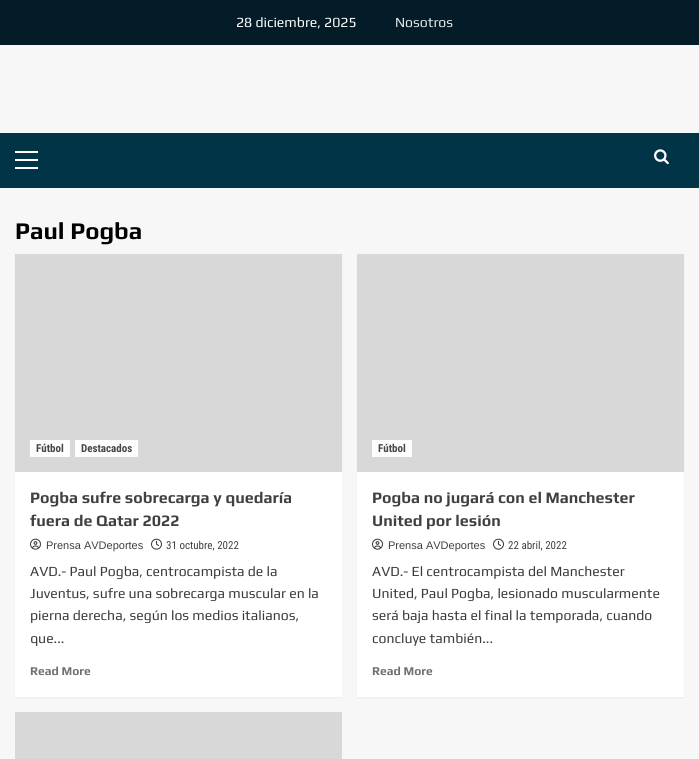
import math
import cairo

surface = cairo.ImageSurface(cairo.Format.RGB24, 699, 759)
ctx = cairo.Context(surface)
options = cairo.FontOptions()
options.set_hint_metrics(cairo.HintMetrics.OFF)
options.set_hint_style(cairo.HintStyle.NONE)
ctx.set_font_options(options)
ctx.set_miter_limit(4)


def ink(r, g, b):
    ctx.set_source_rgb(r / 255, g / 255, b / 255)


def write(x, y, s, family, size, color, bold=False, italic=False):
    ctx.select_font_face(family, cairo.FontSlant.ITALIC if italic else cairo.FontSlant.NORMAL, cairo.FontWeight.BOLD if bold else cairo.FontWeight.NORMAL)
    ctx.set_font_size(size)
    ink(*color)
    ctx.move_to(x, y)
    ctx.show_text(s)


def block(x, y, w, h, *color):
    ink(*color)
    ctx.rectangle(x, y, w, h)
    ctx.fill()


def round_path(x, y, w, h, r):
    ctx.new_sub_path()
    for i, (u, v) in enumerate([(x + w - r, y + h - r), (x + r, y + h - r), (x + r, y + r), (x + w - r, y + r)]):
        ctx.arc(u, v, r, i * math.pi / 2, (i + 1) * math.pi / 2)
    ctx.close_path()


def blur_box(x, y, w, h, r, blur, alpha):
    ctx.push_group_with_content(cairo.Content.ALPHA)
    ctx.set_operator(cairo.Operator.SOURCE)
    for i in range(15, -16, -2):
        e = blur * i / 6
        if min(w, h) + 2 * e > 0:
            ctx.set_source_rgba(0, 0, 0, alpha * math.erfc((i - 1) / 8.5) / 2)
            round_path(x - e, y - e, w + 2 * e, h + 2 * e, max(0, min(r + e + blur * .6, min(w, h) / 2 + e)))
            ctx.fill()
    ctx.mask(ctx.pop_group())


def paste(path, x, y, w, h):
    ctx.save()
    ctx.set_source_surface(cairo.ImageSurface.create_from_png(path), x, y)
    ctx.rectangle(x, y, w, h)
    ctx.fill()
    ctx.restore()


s1 = dict(family="Play", size=14, color=(255, 255, 255))
s2 = dict(family="Play", size=14, color=(230, 232, 233))
s3 = dict(family="Play", size=24, color=(0, 0, 0), bold=True)
s4 = dict(family="Roboto Condensed", size=11, color=(70, 70, 70), bold=True)
s5 = dict(family="Play", size=16, color=(64, 64, 64), bold=True)
s6 = dict(family="Liberation Sans", size=11, color=(64, 64, 64))
s7 = dict(family="Roboto Condensed", size=11, color=(64, 64, 64))
s8 = dict(family="Play", size=14, color=(58, 58, 58))
s9 = dict(family="Play", size=12, color=(112, 112, 112), bold=True)

ink(247, 247, 247)
ctx.paint()
block(0, 0, 699, 45, 3, 28, 39)
write(236, 27, "28 diciembre, 2025", **s1)
write(395, 27, "Nosotros", **s2)
block(0, 133, 699, 55, 0, 52, 70)
block(15, 159, 23, 2, 255, 255, 255)
block(15, 151, 23, 2, 255, 255, 255)
block(15, 167, 23, 2, 255, 255, 255)
paste("pic1.png", 654, 149, 15, 16)
write(15, 239, "Paul Pogba", **s3)
ink(0, 0, 0)
blur_box(15, 255, 327, 443, 0, 1, 0.05)
block(15, 472, 327, 225, 255, 255, 255)
block(15, 254, 327, 218, 216, 216, 216)
block(30, 440, 40, 17, 253, 253, 253)
write(36, 452, "Fútbol", **s4)
block(75, 440, 63, 17, 253, 253, 253)
write(81, 452, "Destacados", **s4)
write(30, 503, "Pogba sufre sobrecarga y quedaría", **s5)
write(30, 526, "fuera de Qatar 2022", **s5)
paste("pic2.png", 30, 538, 11, 12)
write(46, 549, "Prensa AVDeportes", **s6)
paste("pic3.png", 151, 538, 11, 12)
write(166, 549, "31 octubre, 2022", **s7)
write(30, 576, "AVD.- Paul Pogba, centrocampista de la", **s8)
write(30, 598, "Juventus, sufre una sobrecarga muscular en la", **s8)
write(30, 620, "pierna derecha, según los medios italianos,", **s8)
write(30, 643, "que...", **s8)
write(30, 675, "Read More", **s9)
ink(0, 0, 0)
blur_box(357, 255, 327, 443, 0, 1, 0.05)
block(357, 472, 327, 225, 255, 255, 255)
block(357, 254, 327, 218, 216, 216, 216)
block(372, 440, 40, 17, 253, 253, 253)
write(378, 452, "Fútbol", **s4)
write(372, 503, "Pogba no jugará con el Manchester", **s5)
write(372, 526, "United por lesión", **s5)
paste("pic2.png", 372, 538, 11, 12)
write(388, 549, "Prensa AVDeportes", **s6)
paste("pic3.png", 493, 538, 11, 12)
write(508, 549, "22 abril, 2022", **s7)
write(372, 576, "AVD.- El centrocampista del Manchester", **s8)
write(372, 598, "United, Paul Pogba, lesionado muscularmente", **s8)
write(372, 620, "será baja hasta el final la temporada, cuando", **s8)
write(372, 643, "concluye también...", **s8)
write(372, 675, "Read More", **s9)
block(15, 712, 327, 47, 216, 216, 216)
surface.write_to_png("screenshot.png")
